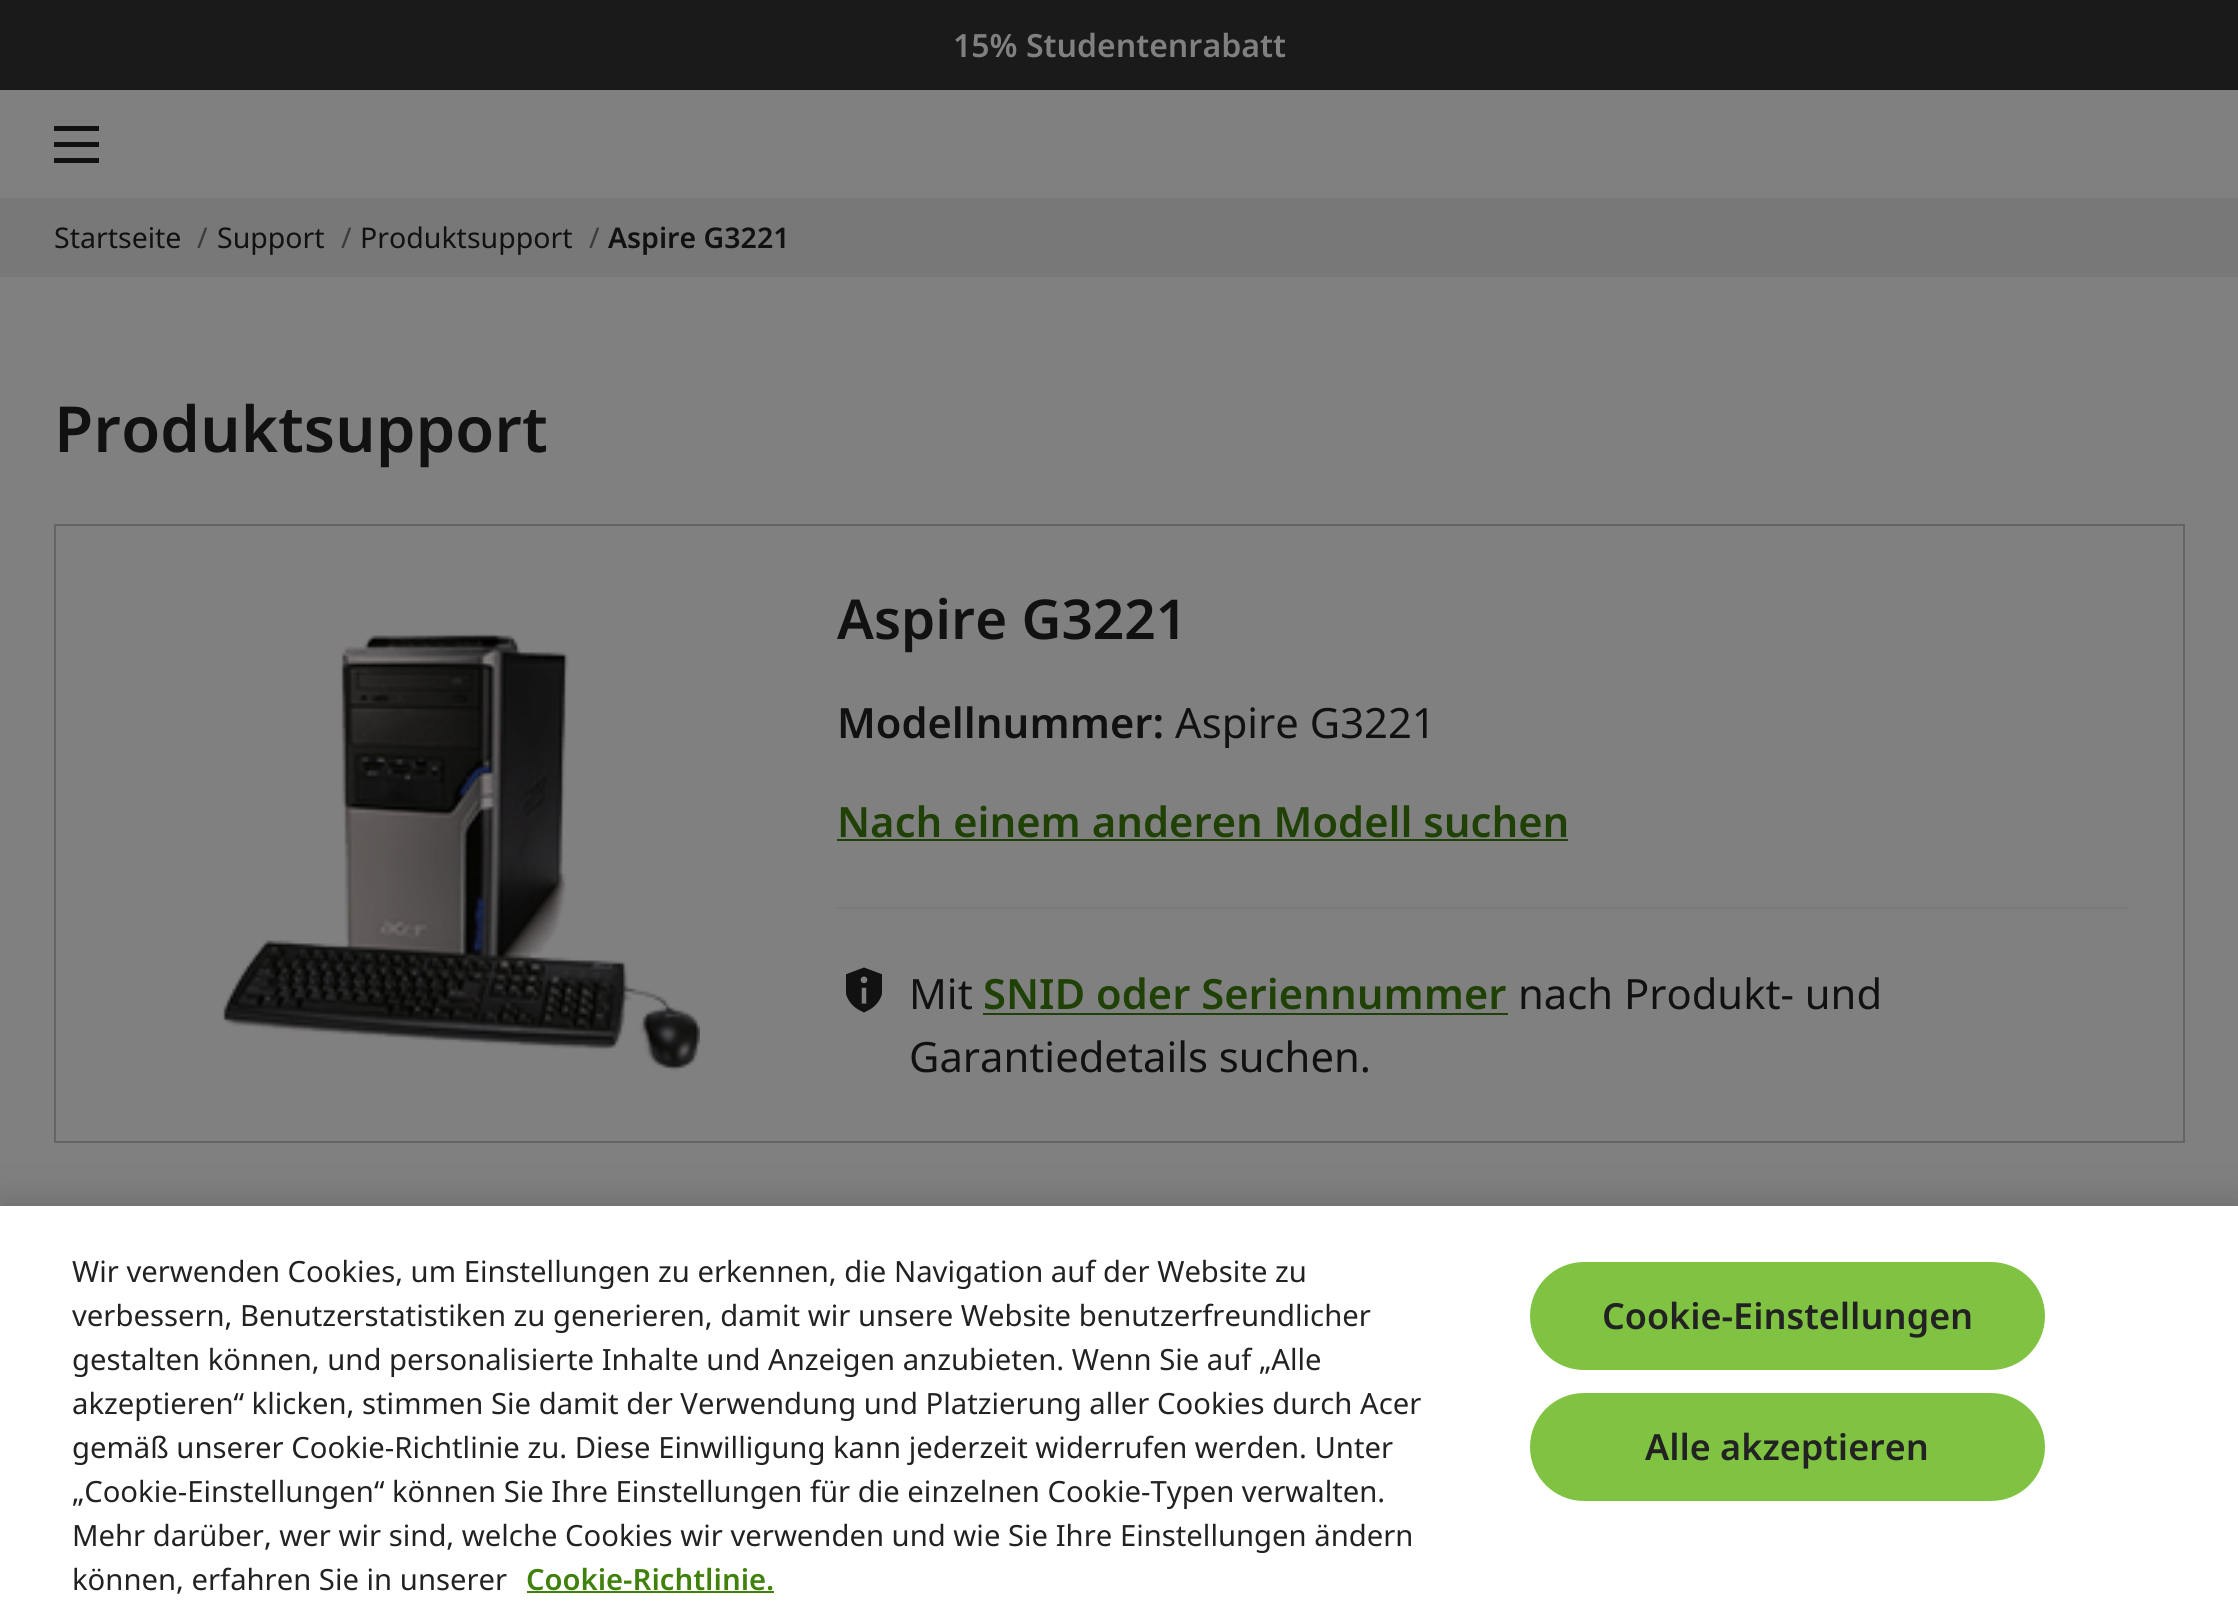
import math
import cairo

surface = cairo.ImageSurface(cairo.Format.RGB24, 2238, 1624)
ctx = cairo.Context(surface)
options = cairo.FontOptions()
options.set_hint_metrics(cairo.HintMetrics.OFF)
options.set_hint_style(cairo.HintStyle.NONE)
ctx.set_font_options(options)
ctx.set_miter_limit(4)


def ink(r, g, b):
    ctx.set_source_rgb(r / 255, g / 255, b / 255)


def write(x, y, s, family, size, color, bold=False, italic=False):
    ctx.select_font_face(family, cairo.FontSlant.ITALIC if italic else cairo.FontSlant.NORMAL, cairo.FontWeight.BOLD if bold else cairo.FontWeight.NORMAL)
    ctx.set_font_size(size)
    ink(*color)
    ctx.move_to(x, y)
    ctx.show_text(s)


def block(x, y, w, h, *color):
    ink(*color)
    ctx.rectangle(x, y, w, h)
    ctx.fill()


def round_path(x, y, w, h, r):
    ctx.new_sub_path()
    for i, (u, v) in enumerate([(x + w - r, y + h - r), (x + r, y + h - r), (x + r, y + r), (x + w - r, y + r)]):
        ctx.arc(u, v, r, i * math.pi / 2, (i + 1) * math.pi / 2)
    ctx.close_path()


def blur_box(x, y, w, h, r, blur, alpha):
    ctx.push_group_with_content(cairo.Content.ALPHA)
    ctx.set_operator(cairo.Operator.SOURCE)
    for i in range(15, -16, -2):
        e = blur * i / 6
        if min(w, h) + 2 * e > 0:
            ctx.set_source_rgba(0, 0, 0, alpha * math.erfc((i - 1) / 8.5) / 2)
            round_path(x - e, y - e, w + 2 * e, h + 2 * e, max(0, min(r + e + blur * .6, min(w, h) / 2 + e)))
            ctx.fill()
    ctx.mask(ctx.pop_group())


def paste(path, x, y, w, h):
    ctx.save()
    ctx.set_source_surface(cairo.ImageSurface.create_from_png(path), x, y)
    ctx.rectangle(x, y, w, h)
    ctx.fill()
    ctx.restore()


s1 = dict(family="Noto Sans SemiBold", size=32, color=(128, 128, 128))
s2 = dict(family="Noto Sans", size=28.5, color=(17, 17, 17))
s3 = dict(family="Noto Sans", size=28.5, color=(59, 59, 59))
s4 = dict(family="Noto Sans SemiBold", size=28.5, color=(17, 17, 17))
s5 = dict(family="Noto Sans SemiBold", size=63.5, color=(17, 17, 17))
s6 = dict(family="Noto Sans SemiBold", size=55, color=(17, 17, 17))
s7 = dict(family="Noto Sans SemiBold", size=41.75, color=(17, 17, 17))
s8 = dict(family="Noto Sans", size=41.75, color=(17, 17, 17))
s9 = dict(family="Noto Sans SemiBold", size=41.75, color=(32, 65, 6))
s10 = dict(family="Noto Sans", size=29.25, color=(34, 34, 34))
s11 = dict(family="Noto Sans SemiBold", size=29.25, color=(64, 129, 12))
s12 = dict(family="Noto Sans SemiBold", size=36, color=(34, 34, 34))

ink(128, 128, 128)
ctx.paint()
block(0, 0, 2238, 90, 26, 26, 26)
write(953, 57, "15% Studentenrabatt", **s1)
block(54, 126, 45, 5, 17, 17, 17)
block(54, 142, 45, 5, 17, 17, 17)
block(54, 158, 45, 5, 17, 17, 17)
block(0, 198, 2238, 79, 120, 120, 120)
write(54, 248, "Startseite", **s2)
write(197, 248, "/", **s3)
write(217, 248, "Support", **s2)
write(341, 248, "/", **s3)
write(360, 248, "Produktsupport", **s2)
write(589, 248, "/", **s3)
write(608, 248, "Aspire G3221", **s4)
write(54, 452, "Produktsupport", **s5)
ctx.rectangle(55, 525, 2129, 617)
ink(100, 100, 100)
ctx.stroke()
paste("pic1.png", 222, 633, 478, 438)
write(837, 639, "Aspire G3221", **s6)
write(837, 738, "Modellnummer:", **s7)
write(1175, 738, "Aspire G3221", **s8)
write(837, 837, "Nach einem anderen Modell suchen", **s9)
block(837, 839, 731, 2, 32, 65, 6)
block(837, 907, 1292, 2, 121, 121, 121)
paste("pic2.png", 846, 967, 36, 46)
write(909, 1009, "Mit", **s8)
write(983, 1009, "SNID oder Seriennummer", **s9)
block(983, 1013, 525, 2, 32, 65, 6)
write(1518, 1009, "nach Produkt- und", **s8)
write(909, 1072, "Garantiedetails suchen.", **s8)
ink(0, 0, 0)
blur_box(0, 1206, 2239, 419, 0, 20, 0.2)
block(0, 1206, 2238, 418, 255, 255, 255)
write(72, 1282, "Wir verwenden Cookies, um Einstellungen zu erkennen, die Navigation auf der Website zu", **s10)
write(72, 1326, "verbessern, Benutzerstatistiken zu generieren, damit wir unsere Website benutzerfreundlicher", **s10)
write(72, 1370, "gestalten können, und personalisierte Inhalte und Anzeigen anzubieten. Wenn Sie auf „Alle", **s10)
write(72, 1414, "akzeptieren“ klicken, stimmen Sie damit der Verwendung und Platzierung aller Cookies durch Acer", **s10)
write(72, 1458, "gemäß unserer Cookie-Richtlinie zu. Diese Einwilligung kann jederzeit widerrufen werden. Unter", **s10)
write(72, 1502, "„Cookie-Einstellungen“ können Sie Ihre Einstellungen für die einzelnen Cookie-Typen verwalten.", **s10)
write(72, 1546, "Mehr darüber, wer wir sind, welche Cookies wir verwenden und wie Sie Ihre Einstellungen ändern", **s10)
write(72, 1590, "können, erfahren Sie in unserer", **s10)
write(526, 1590, "Cookie-Richtlinie.", **s11)
block(527, 1591, 247, 2, 64, 129, 12)
ink(128, 195, 67)
round_path(1530, 1262, 515, 108, 54)
ctx.fill()
write(1602, 1329, "Cookie-Einstellungen", **s12)
ink(128, 195, 67)
round_path(1530, 1393, 515, 108, 54)
ctx.fill()
write(1645, 1460, "Alle akzeptieren", **s12)
surface.write_to_png("screenshot.png")
